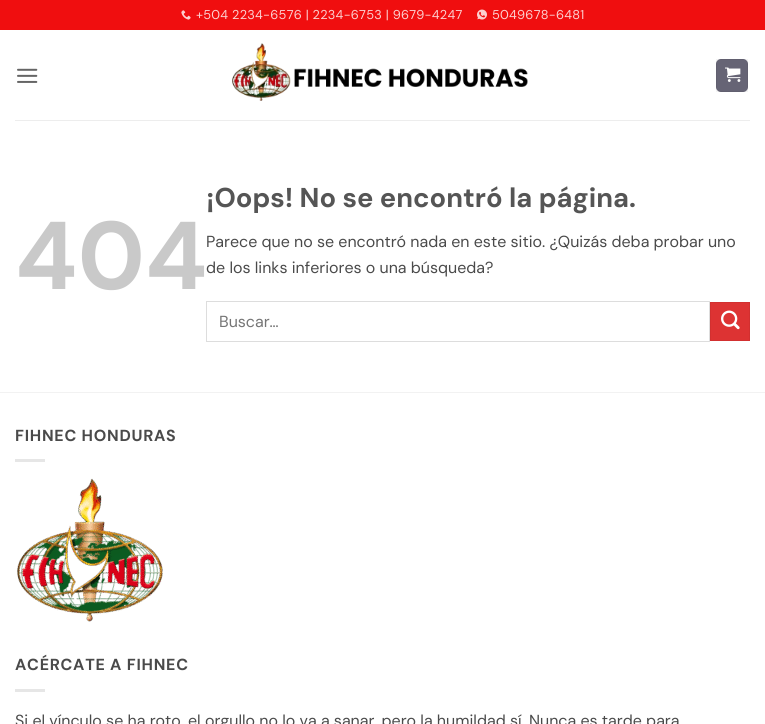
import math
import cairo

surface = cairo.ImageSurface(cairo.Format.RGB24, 765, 724)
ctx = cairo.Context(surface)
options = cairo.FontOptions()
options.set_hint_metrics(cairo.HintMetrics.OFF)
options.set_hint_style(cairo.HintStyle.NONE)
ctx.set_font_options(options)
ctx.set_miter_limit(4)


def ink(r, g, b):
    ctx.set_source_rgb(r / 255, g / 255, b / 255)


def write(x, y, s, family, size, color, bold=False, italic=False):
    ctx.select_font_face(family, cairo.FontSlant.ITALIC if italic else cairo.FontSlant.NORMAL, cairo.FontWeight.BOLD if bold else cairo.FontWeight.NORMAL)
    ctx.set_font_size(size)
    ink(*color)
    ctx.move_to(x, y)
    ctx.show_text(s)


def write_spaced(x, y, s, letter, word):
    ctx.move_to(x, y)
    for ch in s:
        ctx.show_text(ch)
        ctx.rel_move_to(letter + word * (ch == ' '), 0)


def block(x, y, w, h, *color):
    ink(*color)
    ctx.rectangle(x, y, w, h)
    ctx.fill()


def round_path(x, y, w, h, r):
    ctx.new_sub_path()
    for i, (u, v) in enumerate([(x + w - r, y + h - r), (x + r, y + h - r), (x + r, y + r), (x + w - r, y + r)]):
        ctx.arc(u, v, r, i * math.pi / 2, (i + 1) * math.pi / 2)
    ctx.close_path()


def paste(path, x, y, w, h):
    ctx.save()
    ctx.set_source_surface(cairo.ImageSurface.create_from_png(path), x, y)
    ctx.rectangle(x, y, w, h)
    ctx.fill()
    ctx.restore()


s1 = dict(family="DM Sans", size=96, color=(201, 201, 201), bold=True)
s2 = dict(family="DM Sans", size=27.25, color=(85, 85, 85), bold=True)
s3 = dict(family="DM Sans", size=16, color=(74, 74, 74))
s4 = dict(family="DM Sans", size=16, color=(117, 117, 117))

ink(255, 255, 255)
ctx.paint()
block(0, 0, 765, 30, 240, 14, 15)
paste("pic1.png", 181, 10, 10, 10)
ctx.select_font_face("DM Sans")
ctx.set_font_size(12.8)
ink(252, 207, 207)
write_spaced(196, 19, "+504 2234-6576 | 2234-6753 | 9679-4247", 0.25, 0)
paste("pic2.png", 477, 9, 10, 11)
write_spaced(492, 19, "5049678-6481", 0.25, 0)
paste("pic3.png", 17, 68, 21, 15)
paste("pic4.png", 232, 43, 296, 58)
ink(102, 100, 117)
round_path(716, 59, 32, 33, 5)
ctx.fill()
ctx.rectangle(716.5, 59.5, 31, 32)
ctx.set_source_rgba(0, 0, 0, 0.05)
ctx.set_line_width(1)
ctx.stroke()
paste("pic5.png", 725, 67, 16, 15)
block(15, 120, 735, 1, 237, 237, 237)
write(15, 289, "404", **s1)
write(206, 207, "¡Oops! No se encontró la página.", **s2)
write(206, 247, "Parece que no se encontró nada en este sitio. ¿Quizás deba probar uno", **s3)
write(206, 273, "de los links inferiores o una búsqueda?", **s3)
ctx.rectangle(206.5, 301.5, 503, 40)
ink(221, 221, 221)
ctx.stroke()
write(219, 327, "Buscar…", **s4)
ink(221, 51, 51)
ctx.rectangle(710.5, 302.5, 39, 38)
ctx.fill_preserve()
ink(210, 48, 48)
ctx.stroke()
paste("pic6.png", 721, 310, 19, 20)
block(0, 392, 765, 1, 242, 242, 242)
ctx.select_font_face("DM Sans", cairo.FontSlant.NORMAL, cairo.FontWeight.BOLD)
ink(74, 74, 74)
write_spaced(15, 441, "FIHNEC HONDURAS", 0.75, 0)
block(15, 459, 30, 3, 230, 230, 230)
paste("pic7.png", 17, 478, 146, 144)
ink(74, 74, 74)
write_spaced(15, 670, "ACÉRCATE A FIHNEC", 0.75, 0)
block(15, 689, 30, 3, 230, 230, 230)
write(15, 726, "Si el vínculo se ha roto, el orgullo no lo va a sanar, pero la humildad sí. Nunca es tarde para", **s3)
surface.write_to_png("screenshot.png")
